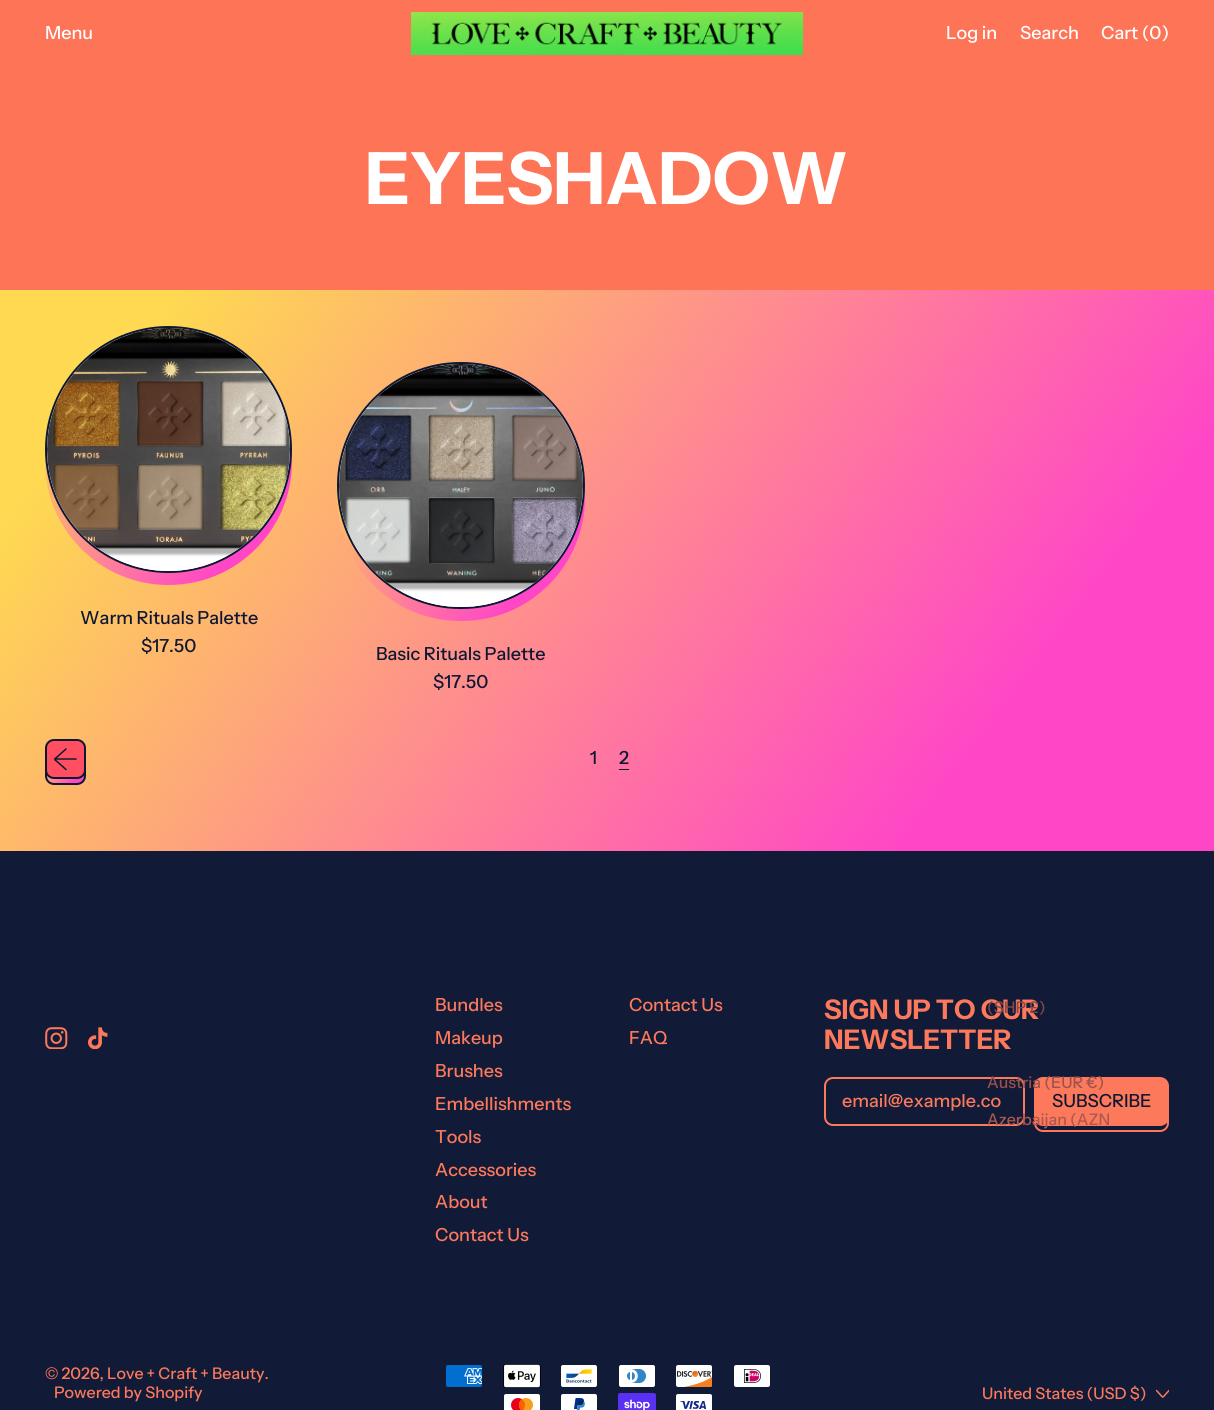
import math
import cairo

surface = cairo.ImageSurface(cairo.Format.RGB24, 1214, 1410)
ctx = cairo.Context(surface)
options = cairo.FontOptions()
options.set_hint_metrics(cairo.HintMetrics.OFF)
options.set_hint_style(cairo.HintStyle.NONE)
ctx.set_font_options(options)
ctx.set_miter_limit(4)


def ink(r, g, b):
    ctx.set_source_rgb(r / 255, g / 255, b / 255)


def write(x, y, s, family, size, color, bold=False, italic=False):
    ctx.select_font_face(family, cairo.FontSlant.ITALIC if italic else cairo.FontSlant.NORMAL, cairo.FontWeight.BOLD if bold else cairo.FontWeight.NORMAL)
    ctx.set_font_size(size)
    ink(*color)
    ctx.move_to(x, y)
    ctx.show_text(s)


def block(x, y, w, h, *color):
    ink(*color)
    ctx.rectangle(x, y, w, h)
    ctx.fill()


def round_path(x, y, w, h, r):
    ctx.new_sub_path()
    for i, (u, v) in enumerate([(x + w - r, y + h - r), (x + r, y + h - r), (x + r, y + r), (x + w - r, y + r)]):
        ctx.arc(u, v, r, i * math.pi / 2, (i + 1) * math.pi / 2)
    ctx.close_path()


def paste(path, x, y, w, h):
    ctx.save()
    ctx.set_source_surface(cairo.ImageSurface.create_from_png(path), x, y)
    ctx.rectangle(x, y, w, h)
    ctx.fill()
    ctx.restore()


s1 = dict(family="Instrument Sans Medium", size=18, color=(255, 255, 255))
s2 = dict(family="Instrument Sans", size=72, color=(255, 255, 255), bold=True)
s3 = dict(family="Instrument Sans Medium", size=18, color=(14, 23, 50))
s4 = dict(family="Instrument Sans Medium", size=18, color=(253, 121, 91))
s5 = dict(family="Instrument Sans", size=27, color=(253, 121, 91), bold=True)
s6 = dict(family="Instrument Sans Medium", size=16, color=(253, 121, 91))
s7 = dict(family="Instrument Sans Medium", size=16, color=(131, 72, 72))
s8 = dict(family="Instrument Sans Medium", size=16, color=(155, 81, 76))
s9 = dict(family="Instrument Sans Medium", size=16, color=(172, 88, 79))

ink(253, 116, 87)
ctx.paint()
write(45, 39, "Menu", **s1)
paste("pic1.png", 411, 12, 392, 43)
write(946, 39, "Log in", **s1)
write(1020, 39, "Search", **s1)
write(1101, 39, "Cart (0)", **s1)
write(365, 204, "EYESHADOW", **s2)
gradient = cairo.LinearGradient(85, 177, 1129, 964)
gradient.add_color_stop_rgba(0.11, 0.996, 0.851, 0.318, 1)
gradient.add_color_stop_rgba(0.81, 1, 0.275, 0.78, 1)
ctx.set_source(gradient)
ctx.rectangle(0, 290, 1214, 561)
ctx.fill()
gradient = cairo.LinearGradient(30, 357, 307, 566)
gradient.add_color_stop_rgba(0.11, 0.996, 0.851, 0.318, 1)
gradient.add_color_stop_rgba(0.81, 1, 0.275, 0.78, 1)
ctx.set_source(gradient)
ctx.arc(168.5, 461.5, 123.5, 0, 2 * math.pi)
ctx.fill()
ink(255, 255, 255)
ctx.arc(168.5, 449.5, 122.5, 0, 2 * math.pi)
ctx.fill_preserve()
ink(14, 23, 50)
ctx.stroke()
paste("pic2.png", 47, 328, 243, 243)
write(80, 624, "Warm Rituals Palette", **s3)
write(141, 652, "$17.50", **s3)
gradient = cairo.LinearGradient(323, 393, 599, 602)
gradient.add_color_stop_rgba(0.11, 0.996, 0.851, 0.318, 1)
gradient.add_color_stop_rgba(0.81, 1, 0.275, 0.78, 1)
ctx.set_source(gradient)
round_path(337, 374, 248, 247, 123.5)
ctx.fill()
ink(255, 255, 255)
round_path(338, 363, 246, 245, 122.5)
ctx.fill_preserve()
ink(14, 23, 50)
ctx.stroke()
paste("pic3.png", 339, 364, 244, 243)
write(376, 660, "Basic Rituals Palette", **s3)
write(433, 688, "$17.50", **s3)
ctx.save()
round_path(45, 745, 41, 40, 9)
ctx.clip()
gradient = cairo.LinearGradient(45, 750, 86, 780)
gradient.add_color_stop_rgba(0.11, 0.996, 0.851, 0.318, 1)
gradient.add_color_stop_rgba(0.81, 1, 0.275, 0.78, 1)
ctx.set_source(gradient)
ctx.rectangle(47, 775, 37, 8)
ctx.fill()
ctx.restore()
round_path(46, 746, 39, 38, 8)
ctx.stroke()
ink(255, 79, 97)
round_path(46, 740, 39, 38, 8)
ctx.fill_preserve()
ink(14, 23, 50)
ctx.stroke()
ctx.new_path()
ctx.move_to(55, 759)
ctx.line_to(76, 759)
ctx.move_to(66, 769.5)
ctx.line_to(57, 761.5)
ctx.curve_to(54, 759, 54, 759.5, 57, 757)
ctx.line_to(66, 749)
ctx.set_line_width(1.5)
ctx.set_line_cap(cairo.LineCap.ROUND)
ctx.set_line_join(cairo.LineJoin.ROUND)
ctx.stroke()
write(590, 764, "1", **s3)
block(619, 769, 10, 1, 14, 23, 50)
write(619, 764, "2", **s3)
block(0, 851, 1214, 559, 17, 26, 55)
paste("pic4.png", 45, 1027, 23, 22)
paste("pic5.png", 88, 1027, 20, 22)
write(435, 1011, "Bundles", **s4)
write(435, 1044, "Makeup", **s4)
write(435, 1077, "Brushes", **s4)
write(435, 1110, "Embellishments", **s4)
write(435, 1143, "Tools", **s4)
write(435, 1176, "Accessories", **s4)
write(435, 1208, "About", **s4)
write(435, 1241, "Contact Us", **s4)
write(629, 1011, "Contact Us", **s4)
write(629, 1044, "FAQ", **s4)
write(824, 1019, "SIGN UP TO OUR", **s5)
write(824, 1049, "NEWSLETTER", **s5)
round_path(825, 1078, 199, 47, 8)
ctx.set_line_width(2)
ctx.set_line_cap(cairo.LineCap.BUTT)
ctx.set_line_join(cairo.LineJoin.MITER)
ctx.stroke()
write(842, 1107, "email@example.co", **s4)
round_path(1035, 1084, 133, 47, 8)
ctx.stroke()
round_path(1035, 1078, 133, 47, 8)
ctx.fill_preserve()
ctx.stroke()
write(1052, 1107, "SUBSCRIBE", **s3)
write(45, 1379, "© 2026, Love + Craft + Beauty.", **s6)
write(54, 1398, "Powered by Shopify", **s6)
paste("pic6.png", 446, 1365, 36, 22)
paste("pic7.png", 503, 1364, 38, 24)
paste("pic8.png", 561, 1365, 36, 22)
paste("pic9.png", 619, 1365, 36, 22)
paste("pic10.png", 676, 1365, 37, 22)
paste("pic11.png", 734, 1365, 36, 22)
paste("pic12.png", 504, 1394, 36, 16)
paste("pic13.png", 561, 1394, 36, 16)
paste("pic14.png", 618, 1393, 38, 17)
paste("pic15.png", 676, 1394, 36, 16)
write(987, 1013, "(SHP £)", **s7)
write(987, 1088, "Austria (EUR €)", **s8)
write(987, 1125, "Azerbaijan (AZN", **s9)
write(982, 1399, "United States (USD $)", **s6)
ctx.save()
ctx.rectangle(1156, 1387, 13, 13)
ctx.clip()
ctx.new_path()
ctx.move_to(1156.5, 1390.5)
ctx.line_to(1161.5, 1396)
ctx.curve_to(1163, 1397.5, 1162.5, 1397.5, 1164, 1396)
ctx.line_to(1169, 1390.5)
ctx.set_line_width(1.5)
ctx.set_line_cap(cairo.LineCap.ROUND)
ctx.set_line_join(cairo.LineJoin.ROUND)
ctx.stroke()
ctx.restore()
surface.write_to_png("screenshot.png")
